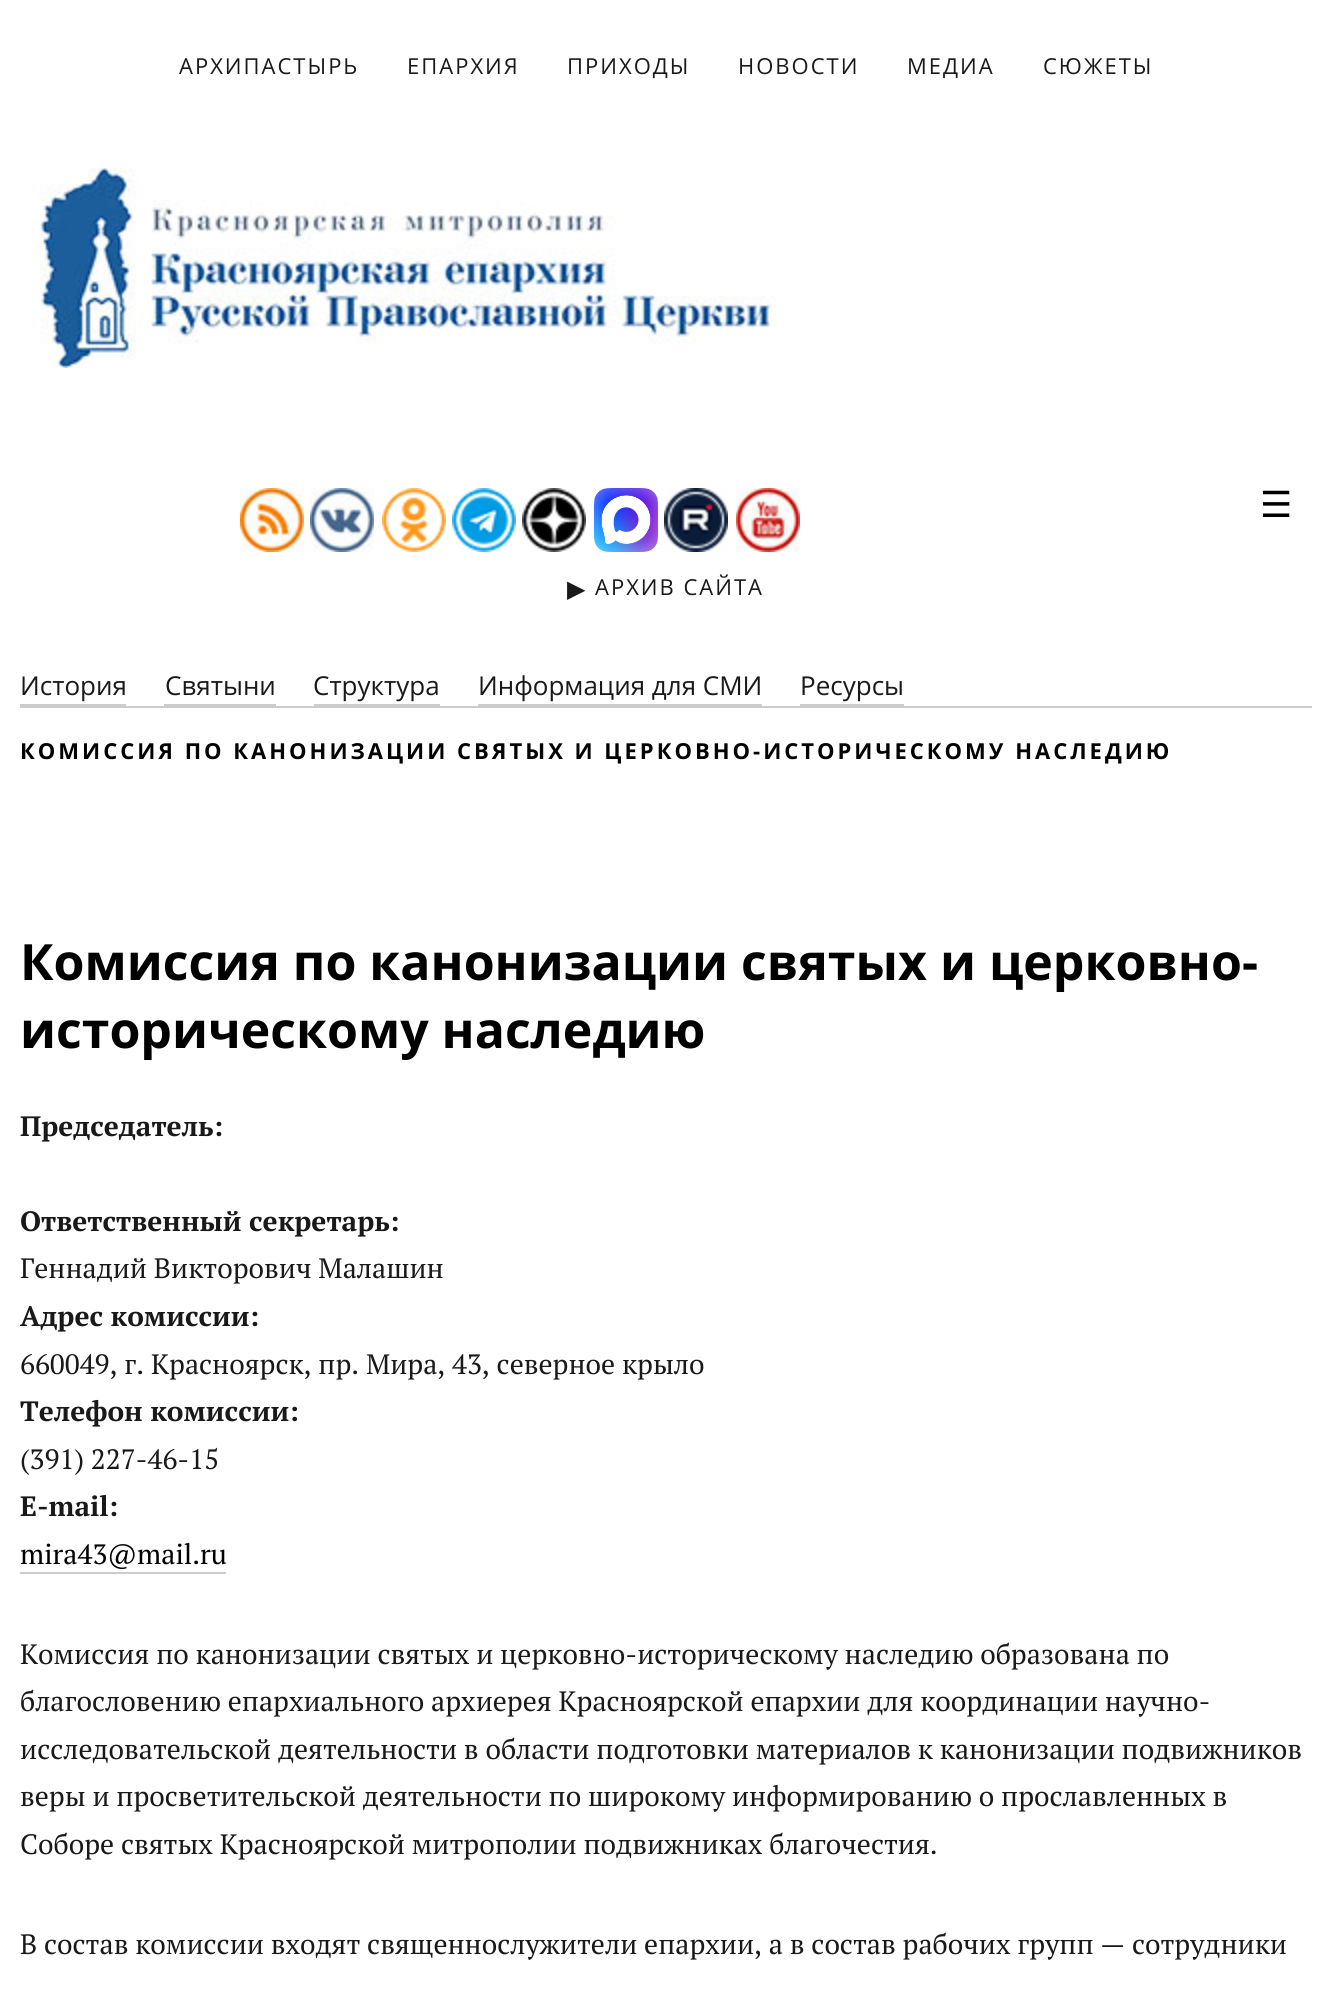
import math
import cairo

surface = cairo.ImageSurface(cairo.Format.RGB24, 1331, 1993)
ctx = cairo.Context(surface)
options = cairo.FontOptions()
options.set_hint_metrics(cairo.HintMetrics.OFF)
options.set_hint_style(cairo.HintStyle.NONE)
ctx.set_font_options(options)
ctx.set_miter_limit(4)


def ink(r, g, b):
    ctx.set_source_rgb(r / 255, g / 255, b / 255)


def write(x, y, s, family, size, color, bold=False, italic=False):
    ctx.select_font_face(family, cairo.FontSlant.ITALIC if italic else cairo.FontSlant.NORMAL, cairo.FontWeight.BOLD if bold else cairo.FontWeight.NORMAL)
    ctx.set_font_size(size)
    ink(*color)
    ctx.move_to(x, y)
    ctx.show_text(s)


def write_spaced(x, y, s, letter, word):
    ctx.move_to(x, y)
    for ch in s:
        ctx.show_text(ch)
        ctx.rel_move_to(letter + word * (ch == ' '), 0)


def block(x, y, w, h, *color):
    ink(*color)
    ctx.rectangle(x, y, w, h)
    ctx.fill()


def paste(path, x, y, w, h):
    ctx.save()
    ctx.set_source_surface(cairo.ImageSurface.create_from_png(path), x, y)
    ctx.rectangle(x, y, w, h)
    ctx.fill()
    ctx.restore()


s1 = dict(family="DejaVu Sans", size=36, color=(0, 0, 0))
s2 = dict(family="Open Sans", size=26, color=(25, 25, 25))
s3 = dict(family="Open Sans", size=50, color=(0, 0, 0), bold=True)
s4 = dict(family="PT Serif", size=28, color=(25, 25, 25), bold=True)
s5 = dict(family="PT Serif", size=28, color=(25, 25, 25))
s6 = dict(family="PT Serif", size=28, color=(0, 0, 0))

ink(255, 255, 255)
ctx.paint()
ctx.select_font_face("Open Sans")
ctx.set_font_size(22)
ink(25, 25, 25)
write_spaced(179, 74, "АРХИПАСТЫРЬ", 2, 0)
write_spaced(407, 74, "ЕПАРХИЯ", 2, 0)
write_spaced(567, 74, "ПРИХОДЫ", 2, 0)
write_spaced(738, 74, "НОВОСТИ", 2, 0)
write_spaced(907, 74, "МЕДИА", 2, 0)
write_spaced(1043, 74, "СЮЖЕТЫ", 2, 0)
paste("pic1.png", 40, 168, 736, 200)
paste("pic2.png", 240, 488, 64, 64)
paste("pic3.png", 310, 488, 64, 64)
paste("pic4.png", 382, 488, 64, 64)
paste("pic5.png", 452, 488, 64, 64)
paste("pic6.png", 522, 488, 64, 64)
paste("pic7.png", 594, 488, 64, 64)
paste("pic8.png", 664, 488, 64, 64)
paste("pic9.png", 736, 488, 64, 64)
write(1260, 517, "☰", **s1)
ctx.set_font_size(24)
ink(25, 25, 25)
write_spaced(567, 597, "▶", 2, 0)
ctx.select_font_face("Open Sans")
ctx.set_font_size(22)
write_spaced(595, 595, "АРХИВ САЙТА", 2, 0)
write(20, 695, "История", **s2)
block(20, 704, 106, 2, 204, 204, 204)
write(165, 695, "Святыни", **s2)
block(164, 704, 112, 2, 204, 204, 204)
write(313, 695, "Структура", **s2)
block(314, 704, 126, 2, 204, 204, 204)
write(478, 695, "Информация для СМИ", **s2)
block(478, 704, 284, 2, 204, 204, 204)
write(800, 695, "Ресурсы", **s2)
block(800, 704, 104, 2, 204, 204, 204)
block(20, 706, 1292, 2, 204, 204, 204)
ctx.select_font_face("Open Sans", cairo.FontSlant.NORMAL, cairo.FontWeight.BOLD)
ctx.set_font_size(22)
ink(0, 0, 0)
write_spaced(20, 759, "КОМИССИЯ ПО КАНОНИЗАЦИИ СВЯТЫХ И ЦЕРКОВНО-ИСТОРИЧЕСКОМУ НАСЛЕДИЮ", 3, 0)
write(20, 980, "Комиссия по канонизации святых и церковно-", **s3)
write(20, 1048, "историческому наследию", **s3)
write(20, 1136, "Председатель:", **s4)
write(20, 1231, "Ответственный секретарь:", **s4)
write(20, 1278, "Геннадий Викторович Малашин", **s5)
write(20, 1326, "Адрес комиссии:", **s4)
write(20, 1374, "660049, г. Красноярск, пр. Мира, 43, северное крыло", **s5)
write(20, 1421, "Телефон комиссии:", **s4)
write(20, 1469, "(391) 227-46-15", **s5)
write(20, 1516, "E-mail:", **s4)
write(20, 1564, "mira43@mail.ru", **s6)
block(20, 1572, 206, 2, 204, 204, 204)
write(20, 1664, "Комиссия по канонизации святых и церковно-историческому наследию образована по", **s5)
write(20, 1711, "благословению епархиального архиерея Красноярской епархии для координации научно-", **s5)
write(20, 1759, "исследовательской деятельности в области подготовки материалов к канонизации подвижников", **s5)
write(20, 1806, "веры и просветительской деятельности по широкому информированию о прославленных в", **s5)
write(20, 1854, "Соборе святых Красноярской митрополии подвижниках благочестия.", **s5)
write(20, 1954, "В состав комиссии входят священнослужители епархии, а в состав рабочих групп — сотрудники", **s5)
surface.write_to_png("screenshot.png")
